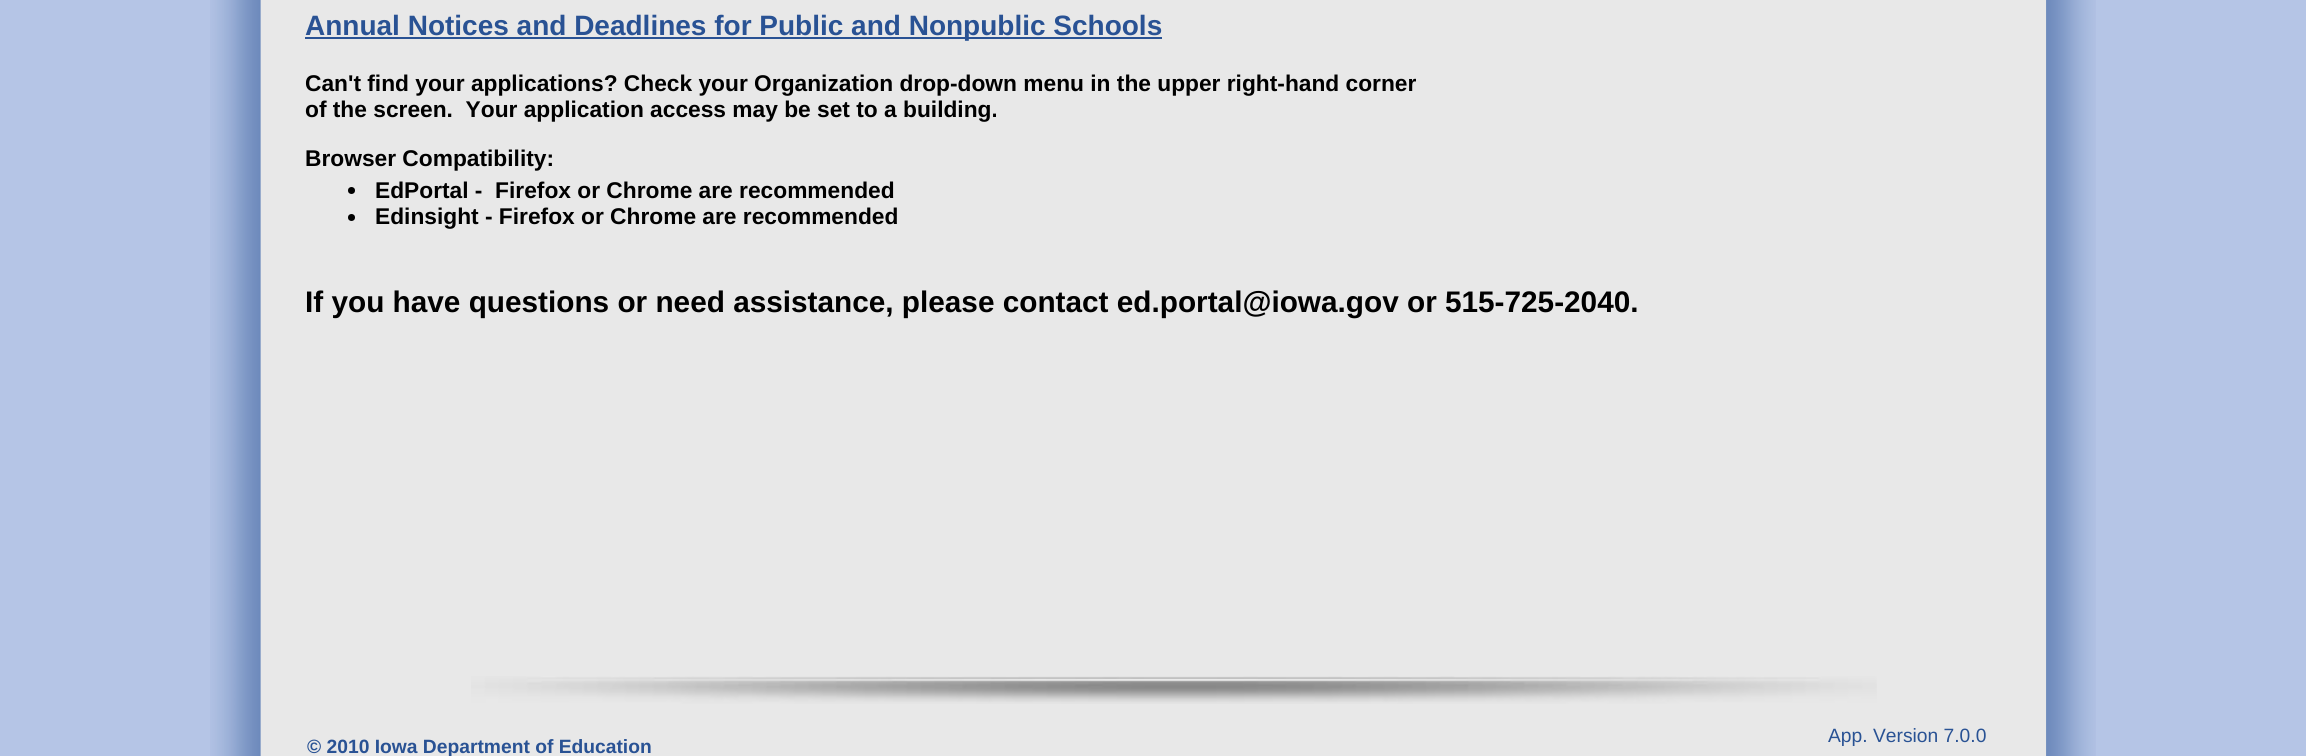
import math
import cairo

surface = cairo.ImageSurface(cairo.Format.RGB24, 2306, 756)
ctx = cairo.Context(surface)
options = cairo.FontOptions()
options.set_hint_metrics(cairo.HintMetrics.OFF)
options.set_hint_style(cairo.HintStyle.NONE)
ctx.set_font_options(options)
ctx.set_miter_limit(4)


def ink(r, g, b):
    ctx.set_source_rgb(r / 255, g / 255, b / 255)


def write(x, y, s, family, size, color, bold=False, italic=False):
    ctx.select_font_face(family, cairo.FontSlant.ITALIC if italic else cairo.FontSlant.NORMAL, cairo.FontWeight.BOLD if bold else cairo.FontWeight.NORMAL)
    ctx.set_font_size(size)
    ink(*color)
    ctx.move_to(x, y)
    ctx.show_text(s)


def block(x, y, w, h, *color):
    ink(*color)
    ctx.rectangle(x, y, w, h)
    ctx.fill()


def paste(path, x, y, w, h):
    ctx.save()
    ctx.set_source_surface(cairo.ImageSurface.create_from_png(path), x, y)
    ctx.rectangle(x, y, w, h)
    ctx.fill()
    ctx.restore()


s1 = dict(family="Liberation Sans", size=28, color=(41, 82, 148), bold=True)
s2 = dict(family="Liberation Sans", size=22.75, color=(0, 0, 0), bold=True)
s3 = dict(family="Liberation Sans", size=29.75, color=(0, 0, 0), bold=True)
s4 = dict(family="Liberation Sans", size=19.25, color=(41, 82, 148), bold=True)
s5 = dict(family="Liberation Sans", size=19.25, color=(41, 82, 148))

ink(181, 197, 230)
ctx.paint()
paste("pic1.png", 210, 0, 1886, 756)
block(261, 0, 1785, 756, 232, 232, 232)
block(305, 37, 857, 2, 41, 82, 148)
write(305, 35, "Annual Notices and Deadlines for Public and Nonpublic Schools", **s1)
write(305, 91, "Can't find your applications? Check your Organization drop-down menu in the upper right-hand corner", **s2)
write(305, 117, "of the screen.  Your application access may be set to a building.", **s2)
write(305, 166, "Browser Compatibility:", **s2)
ctx.new_path()
ctx.arc(351.5, 190.5, 3.5, 0, 2 * math.pi)
ctx.fill()
write(375, 198, "EdPortal -  Firefox or Chrome are recommended", **s2)
ctx.new_path()
ctx.arc(351.5, 217.5, 3.5, 0, 2 * math.pi)
ctx.fill()
write(375, 224, "Edinsight - Firefox or Chrome are recommended", **s2)
write(305, 312, "If you have questions or need assistance, please contact ed.portal@iowa.gov or 515-725-2040.", **s3)
paste("pic2.png", 471, 676, 1406, 28)
write(307, 753, "© 2010 Iowa Department of Education", **s4)
write(1828, 742, "App. Version 7.0.0", **s5)
surface.write_to_png("screenshot.png")
